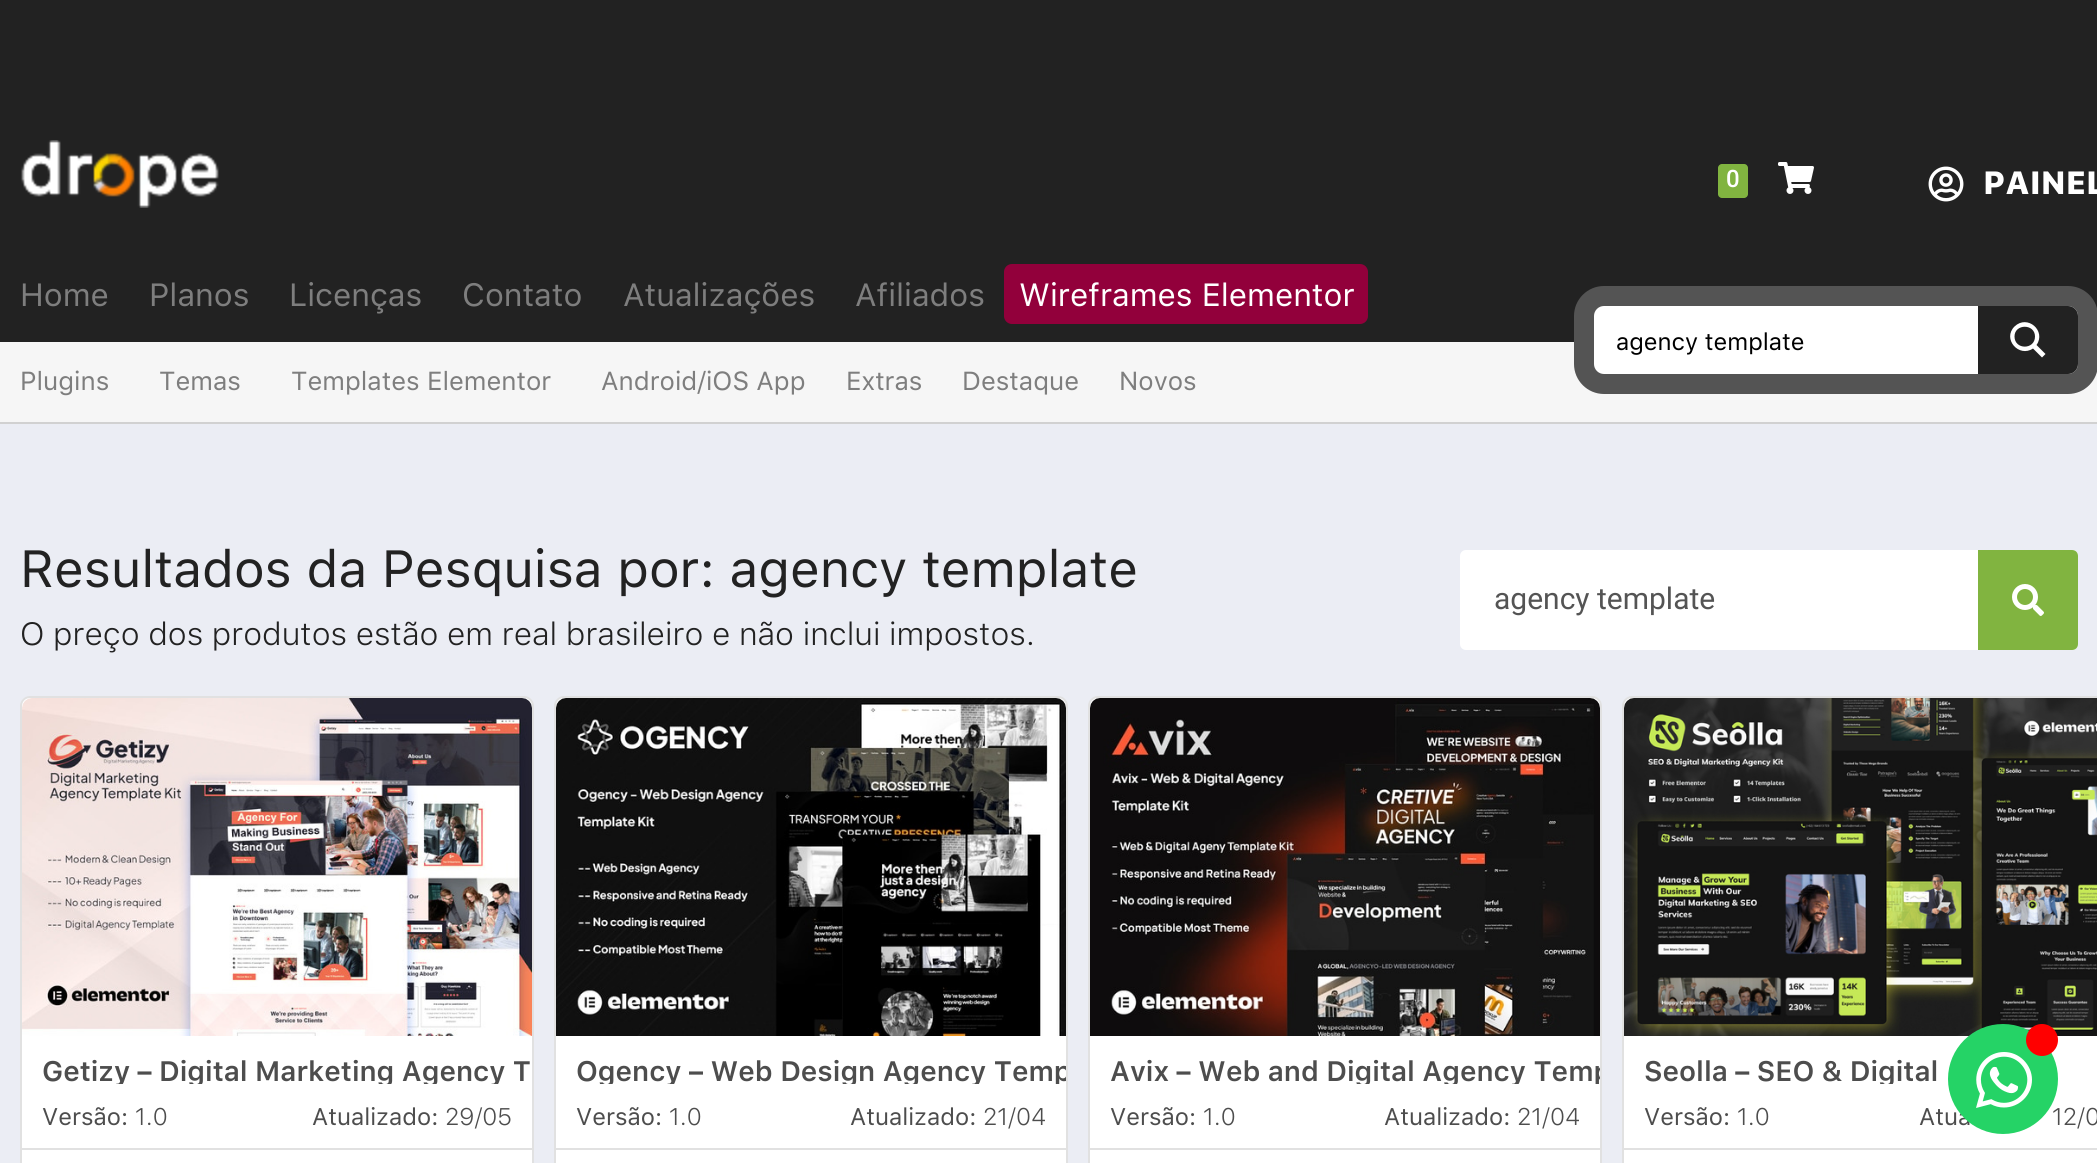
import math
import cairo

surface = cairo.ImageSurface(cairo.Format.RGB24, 2097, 1163)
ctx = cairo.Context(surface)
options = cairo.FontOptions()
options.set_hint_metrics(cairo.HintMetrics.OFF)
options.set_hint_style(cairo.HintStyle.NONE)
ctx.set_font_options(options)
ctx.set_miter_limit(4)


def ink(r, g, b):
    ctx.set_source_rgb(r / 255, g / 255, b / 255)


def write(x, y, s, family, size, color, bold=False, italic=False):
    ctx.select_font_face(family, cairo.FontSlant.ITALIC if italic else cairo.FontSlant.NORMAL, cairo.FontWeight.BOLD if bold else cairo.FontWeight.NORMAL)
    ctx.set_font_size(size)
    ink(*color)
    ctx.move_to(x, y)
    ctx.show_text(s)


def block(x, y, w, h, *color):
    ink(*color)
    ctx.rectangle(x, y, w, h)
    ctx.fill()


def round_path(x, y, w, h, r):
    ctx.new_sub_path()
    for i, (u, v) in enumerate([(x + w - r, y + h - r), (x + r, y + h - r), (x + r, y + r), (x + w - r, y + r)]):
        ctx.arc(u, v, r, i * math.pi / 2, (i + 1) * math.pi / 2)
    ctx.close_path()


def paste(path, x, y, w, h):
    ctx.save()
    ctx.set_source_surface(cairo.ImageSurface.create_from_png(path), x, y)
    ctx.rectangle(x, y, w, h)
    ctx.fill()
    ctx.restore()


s1 = dict(family="Roboto Medium", size=24, color=(255, 255, 255))
s2 = dict(family="SF Pro Text Black", size=32, color=(255, 255, 255))
s3 = dict(family="SF Pro Text", size=32, color=(126, 126, 126))
s4 = dict(family="SF Pro Text", size=32, color=(255, 255, 255))
s5 = dict(family="SF Pro Text", size=24, color=(0, 0, 0))
s6 = dict(family="SF Pro Text", size=26, color=(126, 126, 126))
s7 = dict(family="SF Pro Text", size=52, color=(34, 34, 34))
s8 = dict(family="SF Pro Text Light", size=32, color=(34, 34, 34))
s9 = dict(family="Roboto", size=30, color=(84, 84, 84))
s10 = dict(family="SF Pro Text SemiBold", size=28, color=(77, 77, 77))
s11 = dict(family="SF Pro Text", size=24, color=(77, 77, 77))
s12 = dict(family="SF Pro Text Light", size=24, color=(77, 77, 77))

ink(34, 34, 34)
ctx.paint()
paste("pic1.png", 21, 140, 198, 68)
ink(129, 180, 64)
round_path(1718, 164, 30, 34, 4)
ctx.fill()
write(1726, 187, "0", **s1)
paste("pic2.png", 1778, 162, 36, 32)
paste("pic3.png", 1928, 166, 36, 36)
write(1983, 194, "PAINEL", **s2)
write(20, 306, "Home", **s3)
write(149, 306, "Planos", **s3)
write(289, 306, "Licenças", **s3)
write(462, 306, "Contato", **s3)
write(623, 306, "Atualizações", **s3)
write(855, 306, "Afiliados", **s3)
ink(146, 0, 59)
round_path(1004, 264, 364, 60, 8)
ctx.fill()
write(1019, 306, "Wireframes Elementor", **s4)
block(0, 342, 2097, 80, 246, 246, 246)
block(0, 422, 2097, 2, 209, 209, 209)
ink(84, 84, 84)
round_path(1574, 286, 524, 108, 30)
ctx.fill()
ink(255, 255, 255)
round_path(1594, 306, 484, 68, 10)
ctx.fill()
write(1616, 350, "agency template", **s5)
ink(34, 34, 34)
ctx.new_path()
ctx.move_to(1978, 306)
ctx.line_to(2068, 306)
ctx.curve_to(2073.5, 306, 2078, 310.5, 2078, 316)
ctx.line_to(2078, 364)
ctx.curve_to(2078, 369.5, 2073.5, 374, 2068, 374)
ctx.line_to(1978, 374)
ctx.close_path()
ctx.fill()
ink(255, 255, 255)
ctx.new_path()
ctx.move_to(2045.5, 354)
ctx.line_to(2036.5, 345)
ctx.curve_to(2046.5, 331, 2027.5, 314, 2014.5, 326.5)
ctx.curve_to(2002, 339, 2019, 358, 2033, 348.5)
ctx.line_to(2042, 357.5)
ctx.close_path()
ctx.move_to(2014.5, 336.5)
ctx.curve_to(2014.5, 323.5, 2035, 323.5, 2035, 336.5)
ctx.curve_to(2035, 350, 2014.5, 350, 2014.5, 336.5)
ctx.close_path()
ctx.fill()
write(20, 390, "Plugins", **s6)
write(159, 390, "Temas", **s6)
write(291, 390, "Templates Elementor", **s6)
write(601, 390, "Android/iOS App", **s6)
write(846, 390, "Extras", **s6)
write(962, 390, "Destaque", **s6)
write(1119, 390, "Novos", **s6)
block(0, 424, 2097, 739, 235, 237, 244)
write(20, 587, "Resultados da Pesquisa por: agency template", **s7)
write(20, 645, "O preço dos produtos estão em real brasileiro e não inclui impostos.", **s8)
ink(255, 255, 255)
round_path(1460, 550, 618, 100, 6)
ctx.fill()
write(1494, 609, "agency template", **s9)
ink(129, 180, 64)
ctx.new_path()
ctx.move_to(1978, 550)
ctx.line_to(2072, 550)
ctx.curve_to(2075.5, 550, 2078, 552.5, 2078, 556)
ctx.line_to(2078, 644)
ctx.curve_to(2078, 647.5, 2075.5, 650, 2072, 650)
ctx.line_to(1978, 650)
ctx.close_path()
ctx.fill()
paste("pic4.png", 2012, 584, 32, 32)
ink(255, 255, 255)
round_path(21, 697, 512, 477, 9)
ctx.fill_preserve()
ink(225, 225, 225)
ctx.stroke()
paste("pic5.png", 22, 698, 510, 338)
ctx.save()
ctx.rectangle(22, 1056, 510, 28)
ctx.clip()
write(42, 1081, "Getizy – Digital Marketing Agency T", **s10)
ctx.restore()
write(42, 1125, "Versão:", **s11)
write(135, 1125, "1.0", **s12)
write(312, 1125, "Atualizado:", **s11)
write(445, 1125, "29/05", **s12)
block(22, 1148, 510, 2, 225, 225, 225)
ink(255, 255, 255)
round_path(555, 697, 512, 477, 9)
ctx.fill_preserve()
ink(225, 225, 225)
ctx.stroke()
paste("pic6.png", 556, 698, 510, 338)
ctx.save()
ctx.rectangle(556, 1056, 510, 28)
ctx.clip()
write(576, 1081, "Ogency – Web Design Agency Temp", **s10)
ctx.restore()
write(576, 1125, "Versão:", **s11)
write(669, 1125, "1.0", **s12)
write(850, 1125, "Atualizado:", **s11)
write(983, 1125, "21/04", **s12)
block(556, 1148, 510, 2, 225, 225, 225)
ink(255, 255, 255)
round_path(1089, 697, 512, 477, 9)
ctx.fill_preserve()
ink(225, 225, 225)
ctx.stroke()
paste("pic7.png", 1090, 698, 510, 338)
ctx.save()
ctx.rectangle(1090, 1056, 510, 28)
ctx.clip()
write(1110, 1081, "Avix – Web and Digital Agency Temp", **s10)
ctx.restore()
write(1110, 1125, "Versão:", **s11)
write(1203, 1125, "1.0", **s12)
write(1384, 1125, "Atualizado:", **s11)
write(1517, 1125, "21/04", **s12)
block(1090, 1148, 510, 2, 225, 225, 225)
ink(255, 255, 255)
round_path(1623, 697, 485, 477, 9)
ctx.fill_preserve()
ink(225, 225, 225)
ctx.stroke()
paste("pic8.png", 1624, 698, 473, 338)
ctx.save()
ctx.rectangle(1624, 1056, 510, 28)
ctx.clip()
write(1644, 1081, "Seolla – SEO & Digital", **s10)
ctx.restore()
write(1644, 1125, "Versão:", **s11)
write(1737, 1125, "1.0", **s12)
write(1919, 1125, "Atua", **s11)
write(2052, 1125, "12/0", **s12)
block(1624, 1148, 473, 2, 225, 225, 225)
ink(37, 211, 102)
ctx.new_path()
ctx.arc(2003, 1079, 55, 0, 2 * math.pi)
ctx.fill()
paste("pic9.png", 1976, 1052, 56, 56)
ink(255, 0, 0)
ctx.arc(2042, 1040, 16, 0, 2 * math.pi)
ctx.fill()
surface.write_to_png("screenshot.png")
